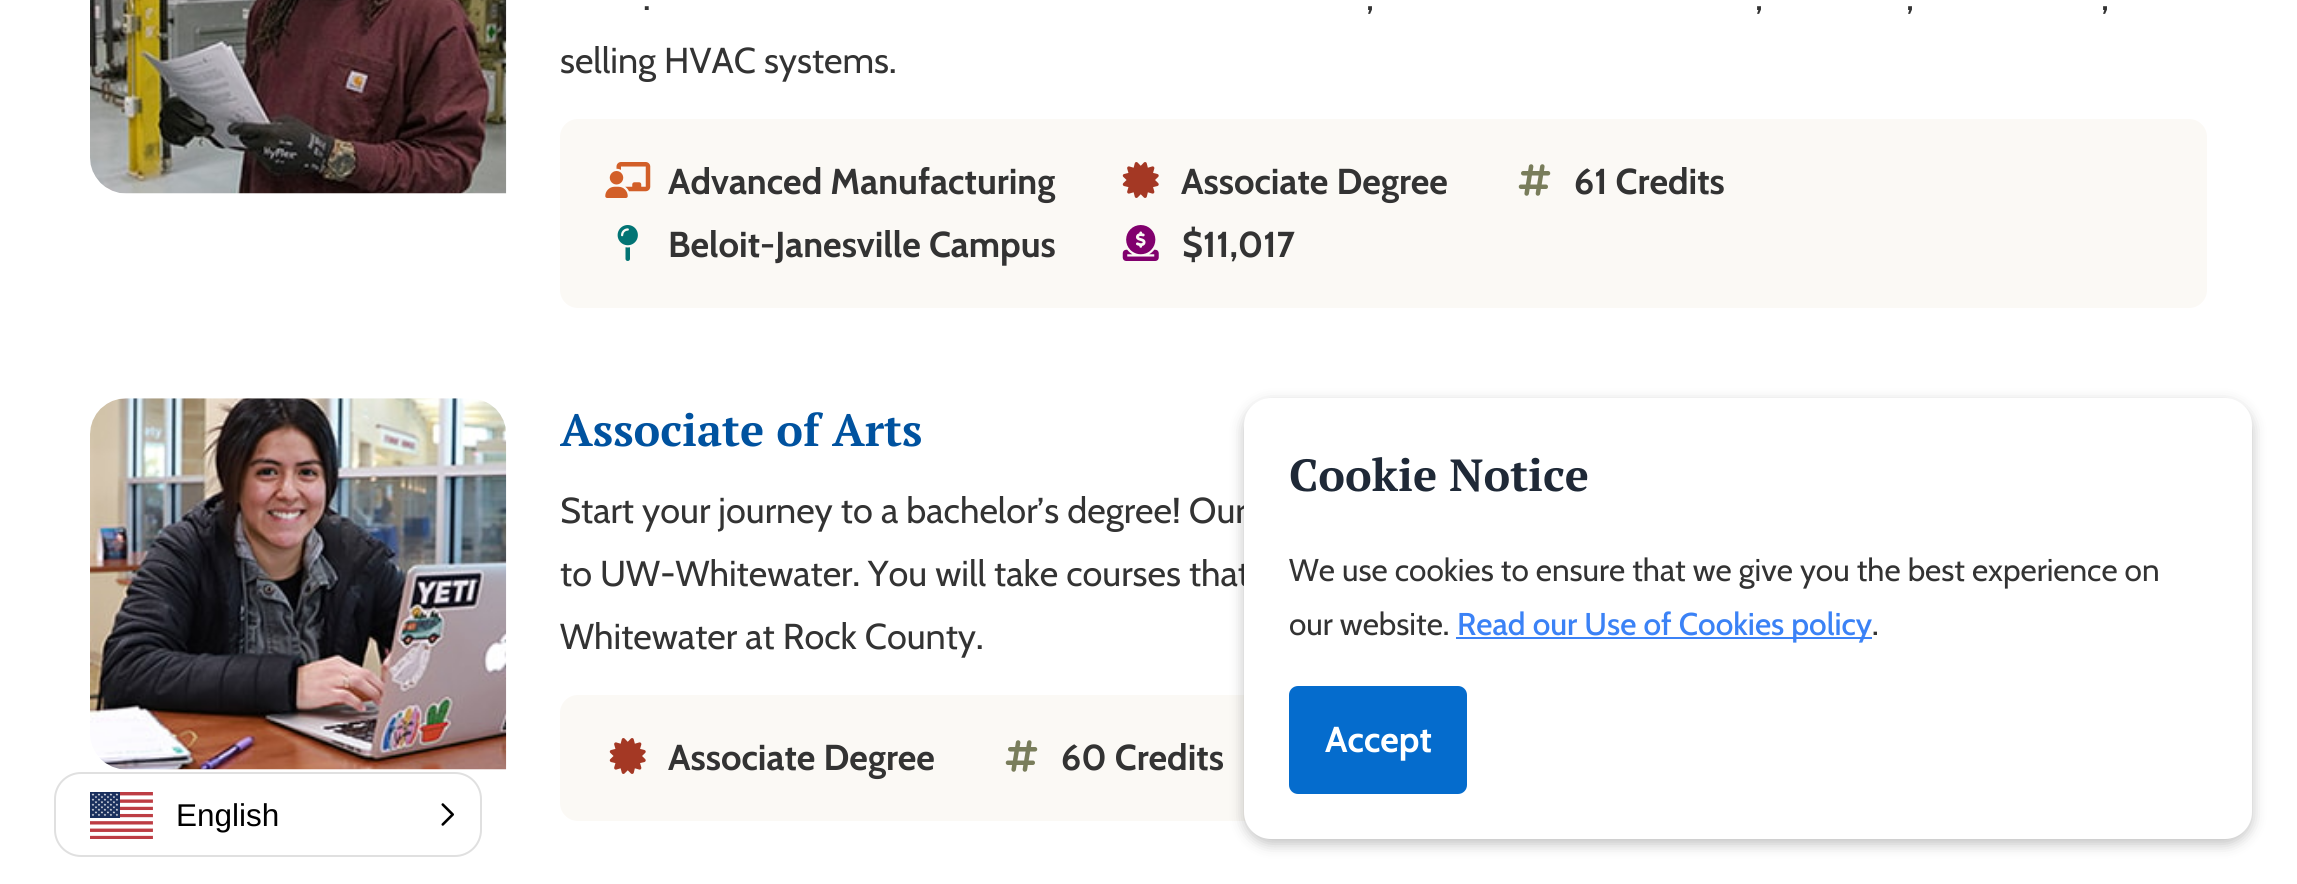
import math
import cairo

surface = cairo.ImageSurface(cairo.Format.RGB24, 2297, 884)
ctx = cairo.Context(surface)
options = cairo.FontOptions()
options.set_hint_metrics(cairo.HintMetrics.OFF)
options.set_hint_style(cairo.HintStyle.NONE)
ctx.set_font_options(options)
ctx.set_miter_limit(4)


def ink(r, g, b):
    ctx.set_source_rgb(r / 255, g / 255, b / 255)


def write(x, y, s, family, size, color, bold=False, italic=False):
    ctx.select_font_face(family, cairo.FontSlant.ITALIC if italic else cairo.FontSlant.NORMAL, cairo.FontWeight.BOLD if bold else cairo.FontWeight.NORMAL)
    ctx.set_font_size(size)
    ink(*color)
    ctx.move_to(x, y)
    ctx.show_text(s)


def block(x, y, w, h, *color):
    ink(*color)
    ctx.rectangle(x, y, w, h)
    ctx.fill()


def round_path(x, y, w, h, r):
    ctx.new_sub_path()
    for i, (u, v) in enumerate([(x + w - r, y + h - r), (x + r, y + h - r), (x + r, y + r), (x + w - r, y + r)]):
        ctx.arc(u, v, r, i * math.pi / 2, (i + 1) * math.pi / 2)
    ctx.close_path()


def blur_box(x, y, w, h, r, blur, alpha):
    ctx.push_group_with_content(cairo.Content.ALPHA)
    ctx.set_operator(cairo.Operator.SOURCE)
    for i in range(15, -16, -2):
        e = blur * i / 6
        if min(w, h) + 2 * e > 0:
            ctx.set_source_rgba(0, 0, 0, alpha * math.erfc((i - 1) / 8.5) / 2)
            round_path(x - e, y - e, w + 2 * e, h + 2 * e, max(0, min(r + e + blur * .6, min(w, h) / 2 + e)))
            ctx.fill()
    ctx.mask(ctx.pop_group())


def paste(path, x, y, w, h):
    ctx.save()
    ctx.set_source_surface(cairo.ImageSurface.create_from_png(path), x, y)
    ctx.rectangle(x, y, w, h)
    ctx.fill()
    ctx.restore()


s1 = dict(family="Cabin", size=36, color=(51, 51, 51))
s2 = dict(family="Cabin", size=36, color=(51, 51, 51), bold=True)
s3 = dict(family="PT Serif", size=45, color=(0, 82, 159), bold=True)
s4 = dict(family="PT Serif", size=45, color=(31, 41, 55), bold=True)
s5 = dict(family="Cabin", size=31.5, color=(51, 51, 51))
s6 = dict(family="Cabin Medium", size=31.5, color=(59, 130, 246))
s7 = dict(family="Cabin", size=36, color=(255, 255, 255), bold=True)
s8 = dict(family="Liberation Sans", size=31.5, color=(0, 0, 0))

ink(255, 255, 255)
ctx.paint()
paste("pic1.png", 90, 0, 417, 194)
write(643, 10, ".", **s1)
write(1366, 10, ",", **s1)
write(1755, 10, ",", **s1)
write(1906, 10, ",", **s1)
write(2101, 10, ",", **s1)
write(560, 73, "selling HVAC systems.", **s1)
ink(251, 249, 245)
round_path(560, 119, 1647, 189, 18)
ctx.fill()
paste("pic2.png", 605, 162, 46, 36)
write(668, 194, "Advanced Manufacturing", **s2)
paste("pic3.png", 1122, 162, 37, 36)
write(1181, 194, "Associate Degree", **s2)
paste("pic4.png", 1518, 164, 33, 32)
write(1574, 194, "61 Credits", **s2)
paste("pic5.png", 617, 225, 21, 36)
write(668, 257, "Beloit-Janesville Campus", **s2)
paste("pic6.png", 1122, 225, 37, 36)
write(1182, 257, "$11,017", **s2)
paste("pic7.png", 90, 398, 417, 372)
write(560, 446, "Associate of Arts", **s3)
write(560, 523, "Start your journey to a bachelor’s degree! Our", **s1)
write(560, 586, "to UW-Whitewater. You will take courses that", **s1)
write(560, 649, "Whitewater at Rock County.", **s1)
ink(251, 249, 245)
round_path(560, 695, 1647, 126, 18)
ctx.fill()
paste("pic3.png", 609, 738, 37, 36)
write(668, 770, "Associate Degree", **s2)
paste("pic4.png", 1005, 740, 33, 32)
write(1061, 770, "60 Credits", **s2)
ink(0, 0, 0)
blur_box(1244, 403, 1008, 441, 27, 7, 0.25)
ink(255, 255, 255)
round_path(1244, 398, 1008, 441, 27)
ctx.fill()
write(1289, 491, "Cookie Notice", **s4)
write(1289, 581, "We use cookies to ensure that we give you the best experience on", **s5)
write(1289, 635, "our website.", **s5)
block(1456, 637, 416, 2, 59, 130, 246)
write(1457, 635, "Read our Use of Cookies policy", **s6)
write(1872, 635, ".", **s5)
ink(5, 108, 205)
round_path(1289, 686, 178, 108, 9)
ctx.fill()
write(1325, 752, "Accept", **s7)
round_path(55, 773, 426, 83, 26)
ink(224, 224, 224)
ctx.stroke()
paste("pic8.png", 90, 792, 63, 47)
write(176, 826, "English", **s8)
paste("pic9.png", 441, 803, 13, 23)
surface.write_to_png("screenshot.png")
